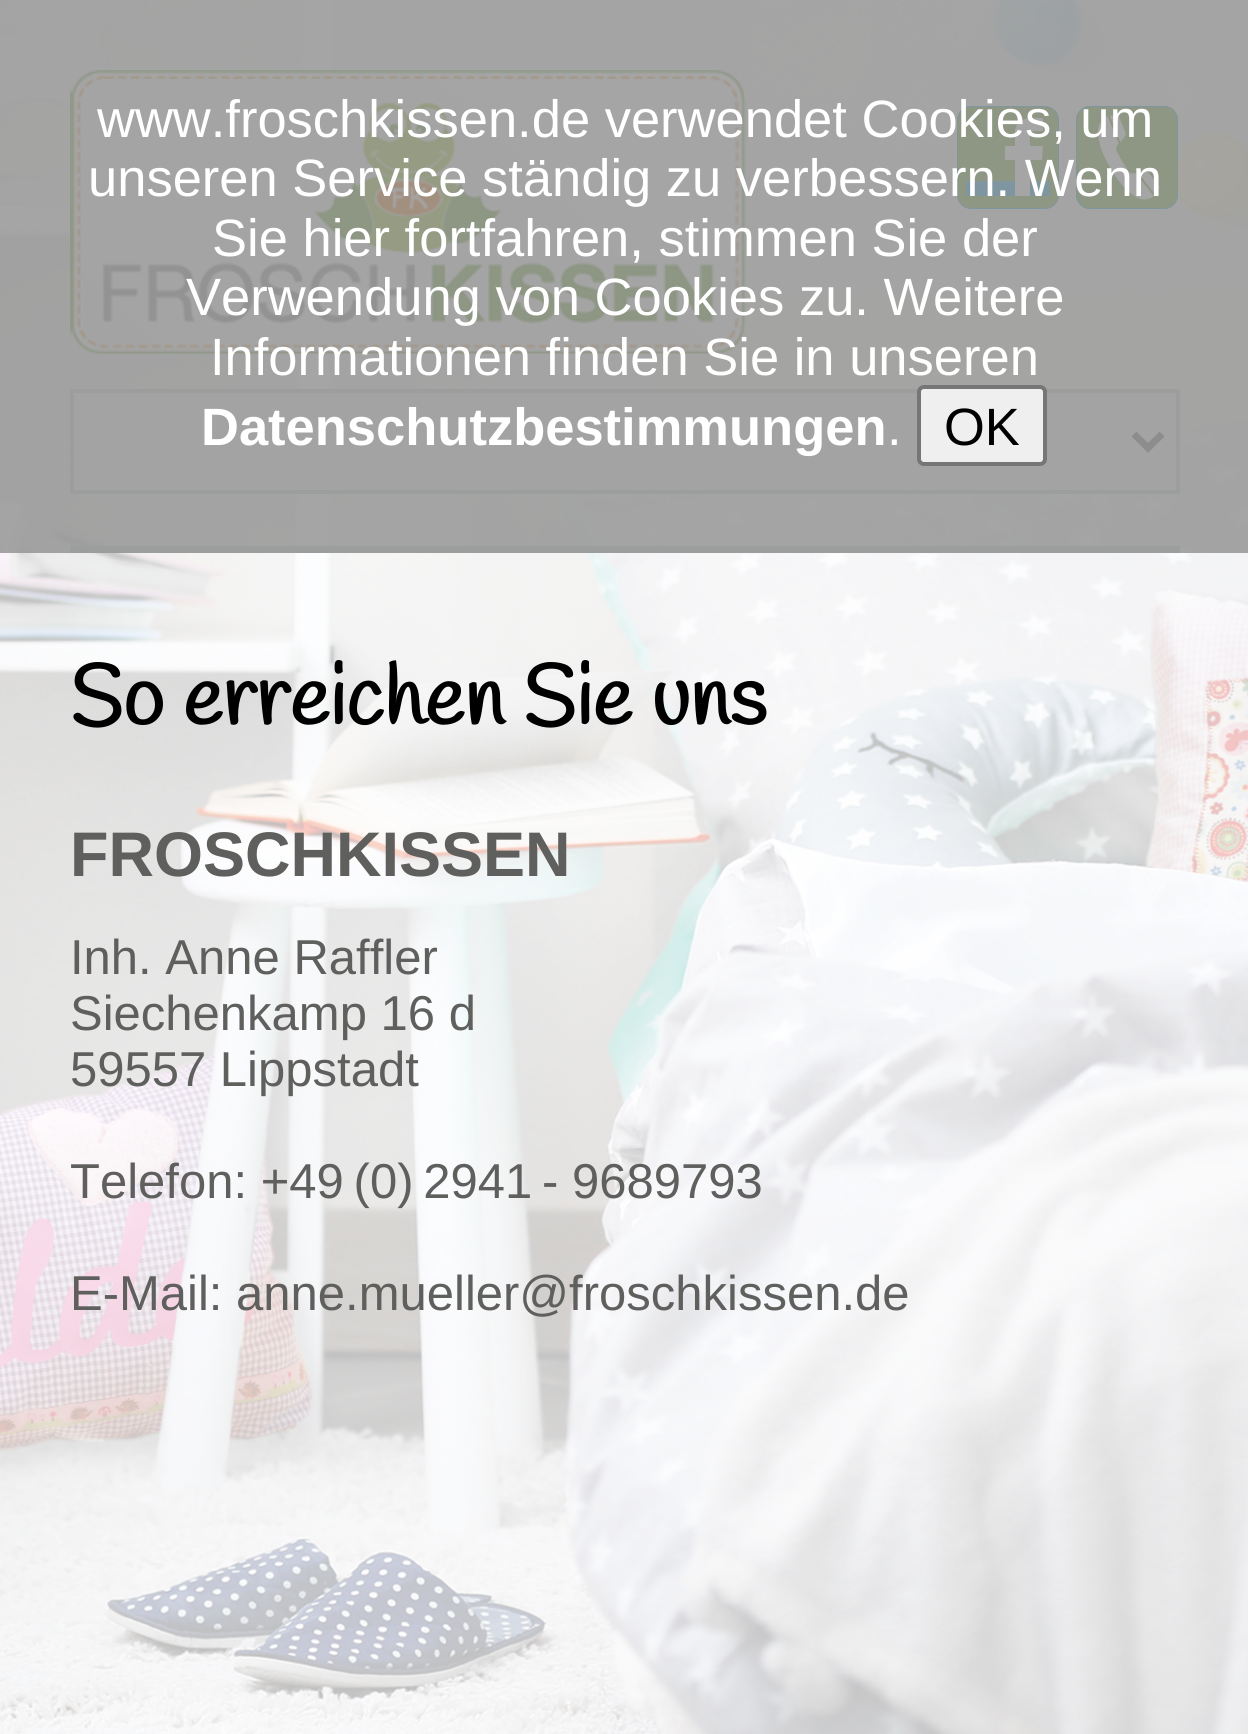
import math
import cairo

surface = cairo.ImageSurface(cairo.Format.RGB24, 1248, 1734)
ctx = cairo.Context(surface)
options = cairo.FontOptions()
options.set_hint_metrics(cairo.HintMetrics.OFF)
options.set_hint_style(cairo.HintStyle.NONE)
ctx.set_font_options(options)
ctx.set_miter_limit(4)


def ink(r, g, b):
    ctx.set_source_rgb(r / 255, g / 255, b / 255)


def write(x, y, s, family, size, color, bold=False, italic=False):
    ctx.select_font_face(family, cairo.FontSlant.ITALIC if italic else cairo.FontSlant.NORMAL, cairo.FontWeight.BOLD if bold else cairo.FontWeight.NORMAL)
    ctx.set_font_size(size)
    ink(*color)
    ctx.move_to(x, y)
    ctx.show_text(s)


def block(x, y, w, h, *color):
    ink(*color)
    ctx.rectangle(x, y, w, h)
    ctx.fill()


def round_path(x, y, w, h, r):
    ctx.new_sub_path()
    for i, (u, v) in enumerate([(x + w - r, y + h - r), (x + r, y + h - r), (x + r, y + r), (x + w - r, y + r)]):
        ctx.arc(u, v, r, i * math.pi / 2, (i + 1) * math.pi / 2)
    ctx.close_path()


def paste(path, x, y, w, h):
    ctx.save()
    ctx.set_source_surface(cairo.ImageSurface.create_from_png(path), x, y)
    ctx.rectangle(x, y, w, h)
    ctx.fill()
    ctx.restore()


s1 = dict(family="Liberation Sans", size=52.5, color=(255, 255, 255))
s2 = dict(family="Liberation Sans", size=52.5, color=(255, 255, 255), bold=True)
s3 = dict(family="Liberation Sans", size=52.5, color=(0, 0, 0))
s4 = dict(family="Handlee", size=84, color=(0, 0, 0), bold=True)
s5 = dict(family="Liberation Sans", size=63, color=(95, 95, 94), bold=True)
s6 = dict(family="Liberation Sans", size=49, color=(95, 95, 94))

ink(255, 255, 255)
ctx.paint()
paste("pic1.png", 0, 0, 1248, 1734)
block(70, 546, 1110, 7, 197, 198, 198)
paste("pic2.png", 70, 70, 676, 284)
ink(99, 157, 34)
round_path(957.5, 106.5, 101, 102, 13.5)
ctx.fill_preserve()
ink(0, 147, 221)
ctx.set_line_width(1)
ctx.stroke()
paste("pic3.png", 1076, 106, 102, 103)
block(966, 181, 84, 15, 0, 147, 221)
ink(255, 255, 255)
ctx.set_fill_rule(cairo.FillRule.EVEN_ODD)
ctx.new_path()
ctx.move_to(1030, 196)
ctx.line_to(1015, 196)
ctx.line_to(1015, 160)
ctx.line_to(1005, 160)
ctx.line_to(1005, 146)
ctx.line_to(1015, 146)
ctx.line_to(1015, 130)
ctx.curve_to(1018, 116, 1033, 118, 1043, 118)
ctx.line_to(1043, 131)
ctx.curve_to(1027, 131, 1030, 130, 1030, 146)
ctx.line_to(1043, 146)
ctx.line_to(1042, 160)
ctx.line_to(1030, 160)
ctx.close_path()
ctx.fill()
ink(239, 239, 239)
ctx.rectangle(72, 391, 1106, 101)
ctx.fill_preserve()
ink(197, 198, 198)
ctx.set_line_width(4)
ctx.stroke()
ctx.new_path()
ctx.move_to(1134, 434)
ctx.line_to(1148, 448)
ctx.line_to(1162, 434)
ink(95, 95, 94)
ctx.set_line_width(7)
ctx.stroke()
ctx.set_source_rgba(0.588, 0.588, 0.588, 0.85)
ctx.rectangle(0, 0, 1248, 553)
ctx.fill()
write(97, 137, "www.froschkissen.de verwendet Cookies, um", **s1)
write(88, 196, "unseren Service ständig zu verbessern. Wenn", **s1)
write(212, 256, "Sie hier fortfahren, stimmen Sie der", **s1)
write(186, 315, "Verwendung von Cookies zu. Weitere", **s1)
write(210, 375, "Informationen finden Sie in unseren", **s1)
write(201, 445, "Datenschutzbestimmungen", **s2)
write(887, 445, ".", **s1)
ink(239, 239, 239)
round_path(919, 387, 126, 77, 5)
ctx.fill_preserve()
ink(118, 118, 118)
ctx.set_line_width(4)
ctx.stroke()
write(944, 445, "OK", **s3)
write(70, 725, "So erreichen Sie uns", **s4)
write(70, 876, "FROSCHKISSEN", **s5)
write(70, 974, "Inh. Anne Raffler", **s6)
write(70, 1030, "Siechenkamp 16 d", **s6)
write(70, 1086, "59557 Lippstadt", **s6)
write(70, 1198, "Telefon: +49 (0) 2941 - 9689793", **s6)
write(70, 1310, "E-Mail: anne.mueller@froschkissen.de", **s6)
surface.write_to_png("screenshot.png")
